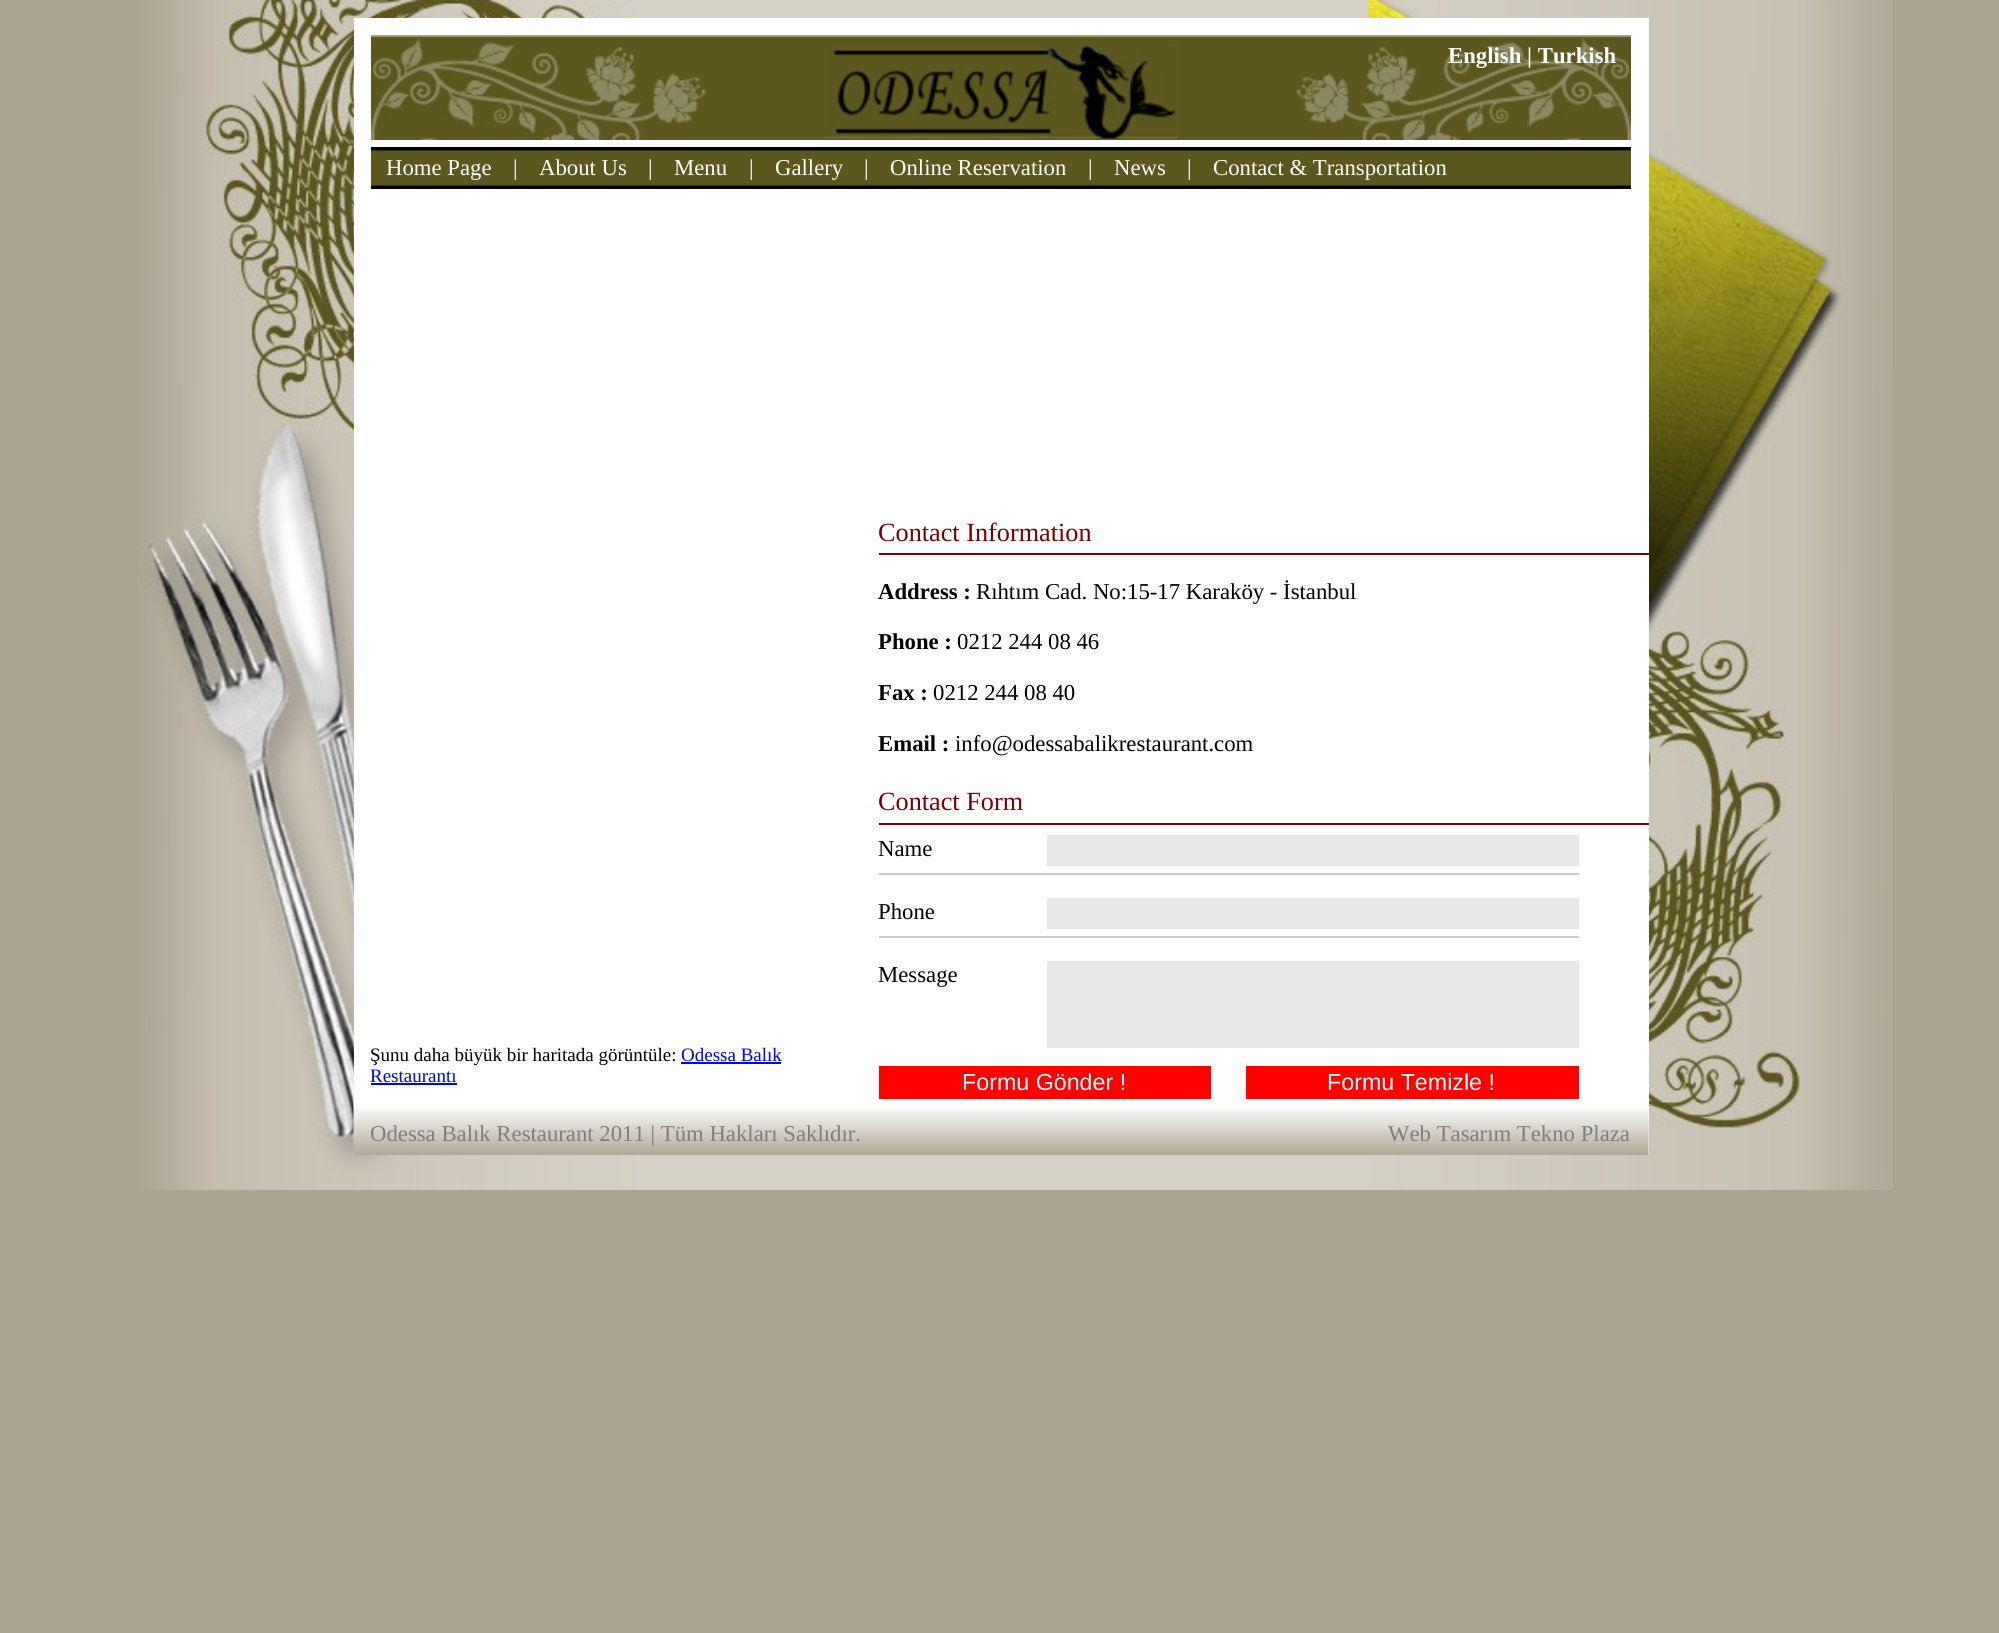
import math
import cairo

surface = cairo.ImageSurface(cairo.Format.RGB24, 1999, 1633)
ctx = cairo.Context(surface)
options = cairo.FontOptions()
options.set_hint_metrics(cairo.HintMetrics.OFF)
options.set_hint_style(cairo.HintStyle.NONE)
ctx.set_font_options(options)
ctx.set_miter_limit(4)


def ink(r, g, b):
    ctx.set_source_rgb(r / 255, g / 255, b / 255)


def write(x, y, s, family, size, color, bold=False, italic=False):
    ctx.select_font_face(family, cairo.FontSlant.ITALIC if italic else cairo.FontSlant.NORMAL, cairo.FontWeight.BOLD if bold else cairo.FontWeight.NORMAL)
    ctx.set_font_size(size)
    ink(*color)
    ctx.move_to(x, y)
    ctx.show_text(s)


def block(x, y, w, h, *color):
    ink(*color)
    ctx.rectangle(x, y, w, h)
    ctx.fill()


def paste(path, x, y, w, h):
    ctx.save()
    ctx.set_source_surface(cairo.ImageSurface.create_from_png(path), x, y)
    ctx.rectangle(x, y, w, h)
    ctx.fill()
    ctx.restore()


s1 = dict(family="Liberation Serif", size=22.75, color=(255, 255, 255), bold=True)
s2 = dict(family="Liberation Serif", size=22.75, color=(255, 255, 255))
s3 = dict(family="Liberation Serif", size=26.25, color=(122, 0, 5))
s4 = dict(family="Liberation Serif", size=22.75, color=(0, 0, 0), bold=True)
s5 = dict(family="Liberation Serif", size=22.75, color=(0, 0, 0))
s6 = dict(family="Liberation Serif", size=19, color=(0, 0, 0))
s7 = dict(family="Liberation Serif", size=19, color=(0, 0, 255))
s8 = dict(family="Liberation Sans", size=23.25, color=(255, 255, 255))
s9 = dict(family="Liberation Serif", size=22.75, color=(126, 126, 126))

ink(171, 164, 145)
ctx.paint()
paste("pic1.png", 137, 0, 1756, 1190)
block(354, 18, 1295, 1137, 255, 255, 255)
paste("pic2.png", 371, 35, 1260, 105)
write(1448, 63, "English | Turkish", **s1)
paste("pic3.png", 371, 147, 1260, 42)
write(386, 175, "Home Page", **s2)
write(513, 175, "|", **s2)
write(539, 175, "About Us", **s2)
write(648, 175, "|", **s2)
write(674, 175, "Menu", **s2)
write(749, 175, "|", **s2)
write(775, 175, "Gallery", **s2)
write(864, 175, "|", **s2)
write(890, 175, "Online Reservation", **s2)
write(1088, 175, "|", **s2)
write(1114, 175, "News", **s2)
write(1187, 175, "|", **s2)
write(1213, 175, "Contact & Transportation", **s2)
block(879, 553, 770, 2, 122, 0, 5)
write(878, 541, "Contact Information", **s3)
write(878, 599, "Address :", **s4)
write(976, 599, "Rıhtım Cad. No:15-17 Karaköy - İstanbul", **s5)
write(878, 649, "Phone :", **s4)
write(957, 649, "0212 244 08 46", **s5)
write(878, 700, "Fax :", **s4)
write(933, 700, "0212 244 08 40", **s5)
write(878, 751, "Email :", **s4)
write(955, 751, "info@odessabalikrestaurant.com", **s5)
write(370, 1061, "Şunu daha büyük bir haritada görüntüle:", **s6)
write(681, 1061, "Odessa Balık", **s7)
block(681, 1062, 100, 2, 0, 0, 255)
write(370, 1082, "Restaurantı", **s7)
block(371, 1083, 86, 2, 0, 0, 255)
block(879, 823, 770, 2, 122, 0, 5)
write(878, 810, "Contact Form", **s3)
block(879, 873, 700, 2, 204, 204, 204)
write(878, 856, "Name", **s5)
block(1047, 835, 532, 31, 232, 232, 232)
block(879, 936, 700, 2, 204, 204, 204)
write(878, 919, "Phone", **s5)
block(1047, 898, 532, 31, 232, 232, 232)
write(878, 982, "Message", **s5)
block(1047, 961, 532, 87, 232, 232, 232)
block(879, 1066, 332, 33, 255, 0, 0)
write(962, 1090, "Formu Gönder !", **s8)
block(1246, 1066, 333, 33, 255, 0, 0)
write(1327, 1090, "Formu Temizle !", **s8)
paste("pic4.png", 353, 1099, 1, 2)
paste("pic6.png", 353, 1102, 1296, 53)
paste("pic5.png", 353, 1100, 1, 3)
write(370, 1141, "Odessa Balık Restaurant 2011 | Tüm Hakları Saklıdır.", **s9)
write(1388, 1141, "Web Tasarım Tekno Plaza", **s9)
surface.write_to_png("screenshot.png")
